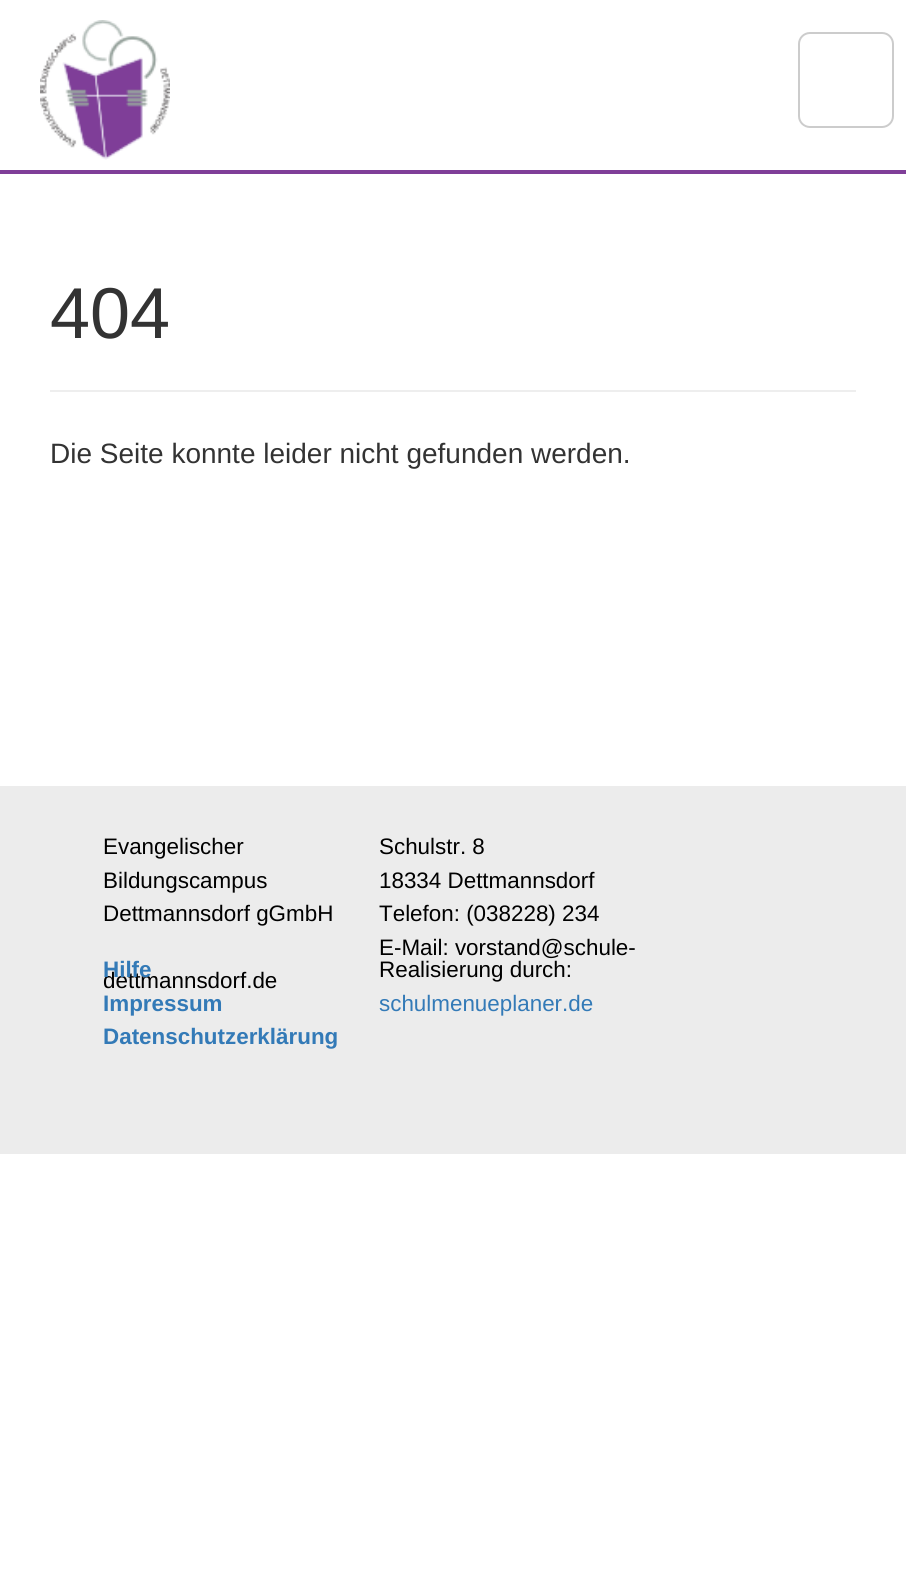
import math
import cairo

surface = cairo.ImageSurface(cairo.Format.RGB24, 906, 1584)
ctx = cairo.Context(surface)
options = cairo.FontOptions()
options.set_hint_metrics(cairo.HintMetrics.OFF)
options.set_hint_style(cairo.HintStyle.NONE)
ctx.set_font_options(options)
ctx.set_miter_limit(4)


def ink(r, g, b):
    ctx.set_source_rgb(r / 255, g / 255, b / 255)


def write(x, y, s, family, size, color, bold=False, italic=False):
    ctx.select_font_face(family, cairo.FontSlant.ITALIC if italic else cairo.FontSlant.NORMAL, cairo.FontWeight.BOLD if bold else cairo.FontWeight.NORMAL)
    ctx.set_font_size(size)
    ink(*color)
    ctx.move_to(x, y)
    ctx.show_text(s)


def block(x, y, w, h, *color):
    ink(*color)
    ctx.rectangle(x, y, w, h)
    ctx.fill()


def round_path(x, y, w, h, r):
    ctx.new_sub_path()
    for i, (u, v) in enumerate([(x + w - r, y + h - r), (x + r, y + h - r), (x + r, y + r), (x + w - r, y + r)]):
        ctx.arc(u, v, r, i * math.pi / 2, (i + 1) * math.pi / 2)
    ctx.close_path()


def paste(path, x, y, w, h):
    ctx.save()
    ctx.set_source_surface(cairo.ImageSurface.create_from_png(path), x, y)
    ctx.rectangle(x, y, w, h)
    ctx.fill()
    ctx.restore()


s1 = dict(family="Liberation Sans", size=72, color=(51, 51, 51))
s2 = dict(family="Liberation Sans", size=28, color=(51, 51, 51))
s3 = dict(family="Liberation Sans", size=22.4, color=(0, 0, 0))
s4 = dict(family="Liberation Sans", size=22.4, color=(51, 122, 183), bold=True)
s5 = dict(family="Liberation Sans", size=22.4, color=(51, 122, 183))

ink(255, 255, 255)
ctx.paint()
block(0, 170, 906, 4, 127, 62, 152)
paste("pic1.png", 40, 20, 130, 140)
round_path(799, 33, 94, 94, 11)
ink(204, 204, 204)
ctx.stroke()
block(50, 390, 806, 2, 238, 238, 238)
write(50, 338, "404", **s1)
write(50, 463, "Die Seite konnte leider nicht gefunden werden.", **s2)
block(0, 786, 906, 368, 236, 236, 236)
write(103, 854, "Evangelischer", **s3)
write(103, 888, "Bildungscampus", **s3)
write(103, 921, "Dettmannsdorf gGmbH", **s3)
write(379, 854, "Schulstr. 8", **s3)
write(379, 888, "18334 Dettmannsdorf", **s3)
write(379, 921, "Telefon: (038228) 234", **s3)
write(379, 955, "E-Mail: vorstand@schule-", **s3)
write(103, 988, "dettmannsdorf.de", **s3)
write(103, 977, "Hilfe", **s4)
write(103, 1011, "Impressum", **s4)
write(103, 1044, "Datenschutzerklärung", **s4)
write(379, 977, "Realisierung durch:", **s3)
write(379, 1011, "schulmenueplaner.de", **s5)
surface.write_to_png("screenshot.png")
